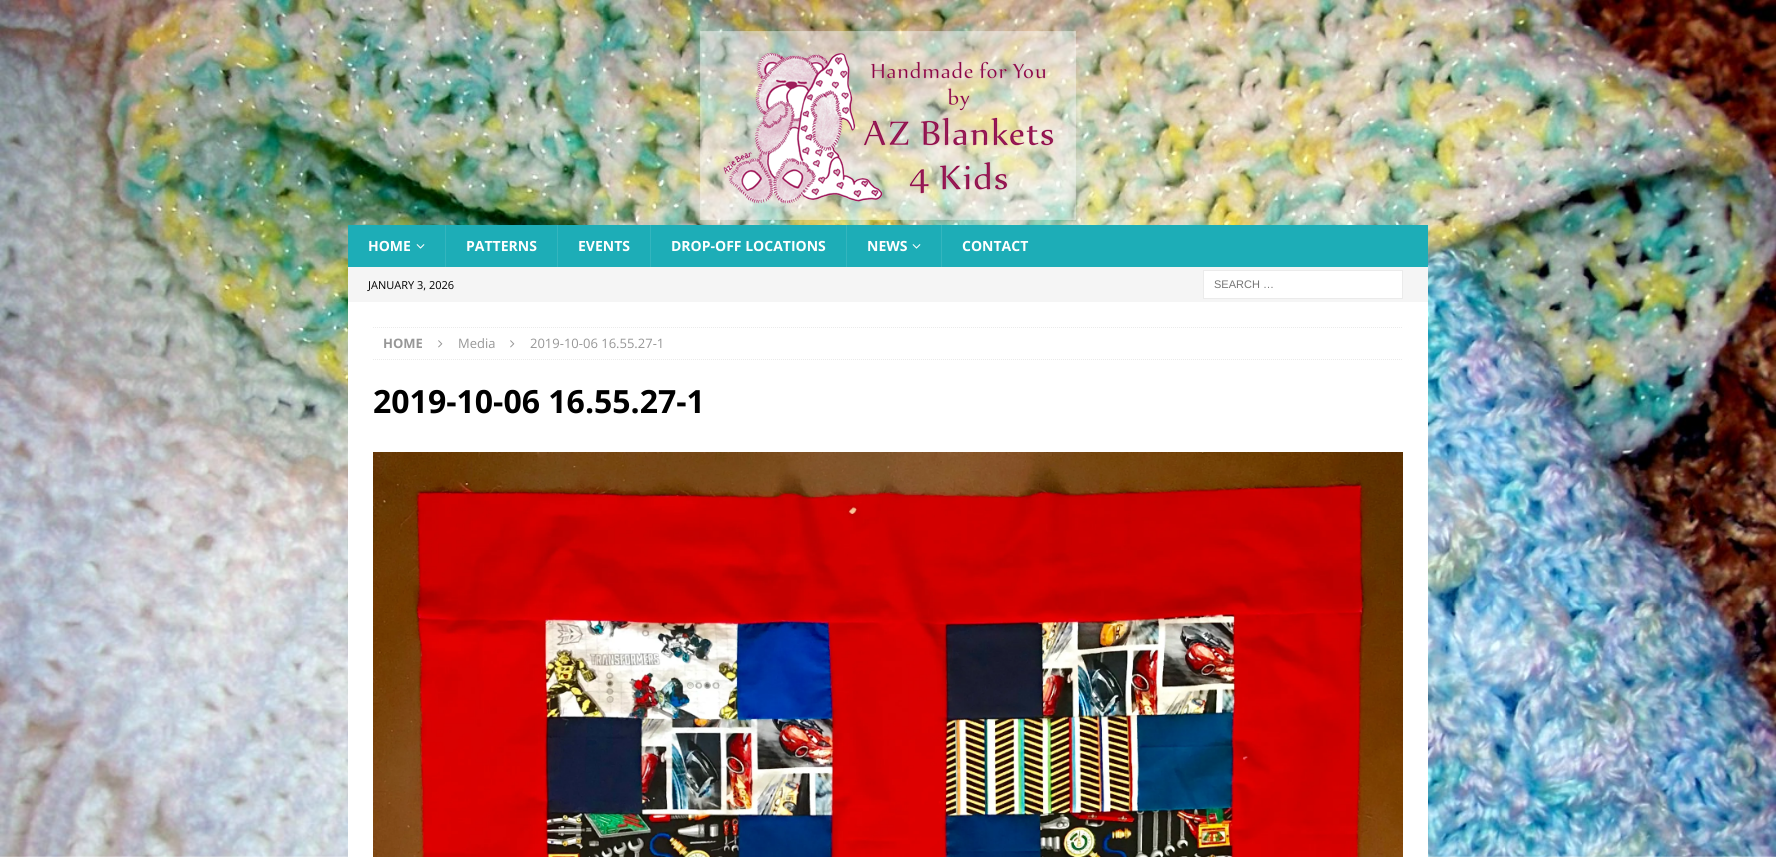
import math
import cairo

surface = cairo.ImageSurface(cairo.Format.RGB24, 1776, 857)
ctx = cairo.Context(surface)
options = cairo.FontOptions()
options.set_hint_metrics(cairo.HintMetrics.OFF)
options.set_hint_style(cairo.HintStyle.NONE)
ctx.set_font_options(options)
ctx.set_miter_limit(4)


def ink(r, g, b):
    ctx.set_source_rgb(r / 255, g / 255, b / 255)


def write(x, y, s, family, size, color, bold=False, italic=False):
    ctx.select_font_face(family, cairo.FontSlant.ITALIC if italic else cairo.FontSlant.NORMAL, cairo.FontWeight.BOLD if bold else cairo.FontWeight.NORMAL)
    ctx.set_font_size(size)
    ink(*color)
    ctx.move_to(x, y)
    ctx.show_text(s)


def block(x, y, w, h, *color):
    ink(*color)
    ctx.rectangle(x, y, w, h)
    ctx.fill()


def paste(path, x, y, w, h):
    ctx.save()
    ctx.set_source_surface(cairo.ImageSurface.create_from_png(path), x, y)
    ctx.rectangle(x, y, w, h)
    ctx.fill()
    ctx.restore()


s1 = dict(family="Open Sans", size=14, color=(255, 255, 255), bold=True)
s2 = dict(family="Open Sans", size=11, color=(0, 0, 0))
s3 = dict(family="Liberation Sans", size=11, color=(117, 117, 117))
s4 = dict(family="Open Sans", size=13, color=(151, 151, 151), bold=True)
s5 = dict(family="Open Sans", size=13, color=(151, 151, 151))
s6 = dict(family="Open Sans", size=32, color=(0, 0, 0), bold=True)

ink(255, 255, 255)
ctx.paint()
paste("pic1.png", 0, 0, 1776, 857)
paste("pic2.png", 700, 31, 376, 189)
block(348, 225, 1080, 42, 29, 173, 183)
write(368, 251, "HOME", **s1)
paste("pic3.png", 416, 244, 9, 5)
block(445, 225, 1, 42, 52, 181, 190)
write(466, 251, "PATTERNS", **s1)
block(557, 225, 1, 42, 52, 181, 190)
write(578, 251, "EVENTS", **s1)
block(650, 225, 1, 42, 52, 181, 190)
write(671, 251, "DROP-OFF LOCATIONS", **s1)
block(846, 225, 1, 42, 52, 181, 190)
write(867, 251, "NEWS", **s1)
paste("pic3.png", 912, 244, 9, 5)
block(941, 225, 1, 42, 52, 181, 190)
write(962, 251, "CONTACT", **s1)
block(348, 267, 1080, 35, 245, 245, 245)
write(368, 289, "JANUARY 3, 2026", **s2)
ink(255, 255, 255)
ctx.rectangle(1203.5, 270.5, 199, 28)
ctx.fill_preserve()
ink(235, 235, 235)
ctx.set_line_width(1)
ctx.stroke()
write(1214, 288, "SEARCH …", **s3)
block(348, 302, 1080, 555, 255, 255, 255)
ctx.new_path()
ctx.move_to(373, 327.5)
ctx.line_to(1403, 327.5)
ink(235, 235, 235)
ctx.set_dash([1, 1])
ctx.stroke()
ctx.new_path()
ctx.move_to(373, 359.5)
ctx.line_to(1403, 359.5)
ctx.stroke()
write(383, 348, "HOME", **s4)
paste("pic4.png", 438, 340, 5, 8)
write(458, 348, "Media", **s5)
paste("pic4.png", 510, 340, 5, 8)
write(530, 348, "2019-10-06 16.55.27-1", **s5)
write(373, 413, "2019-10-06 16.55.27-1", **s6)
paste("pic5.png", 373, 452, 1030, 405)
surface.write_to_png("screenshot.png")
